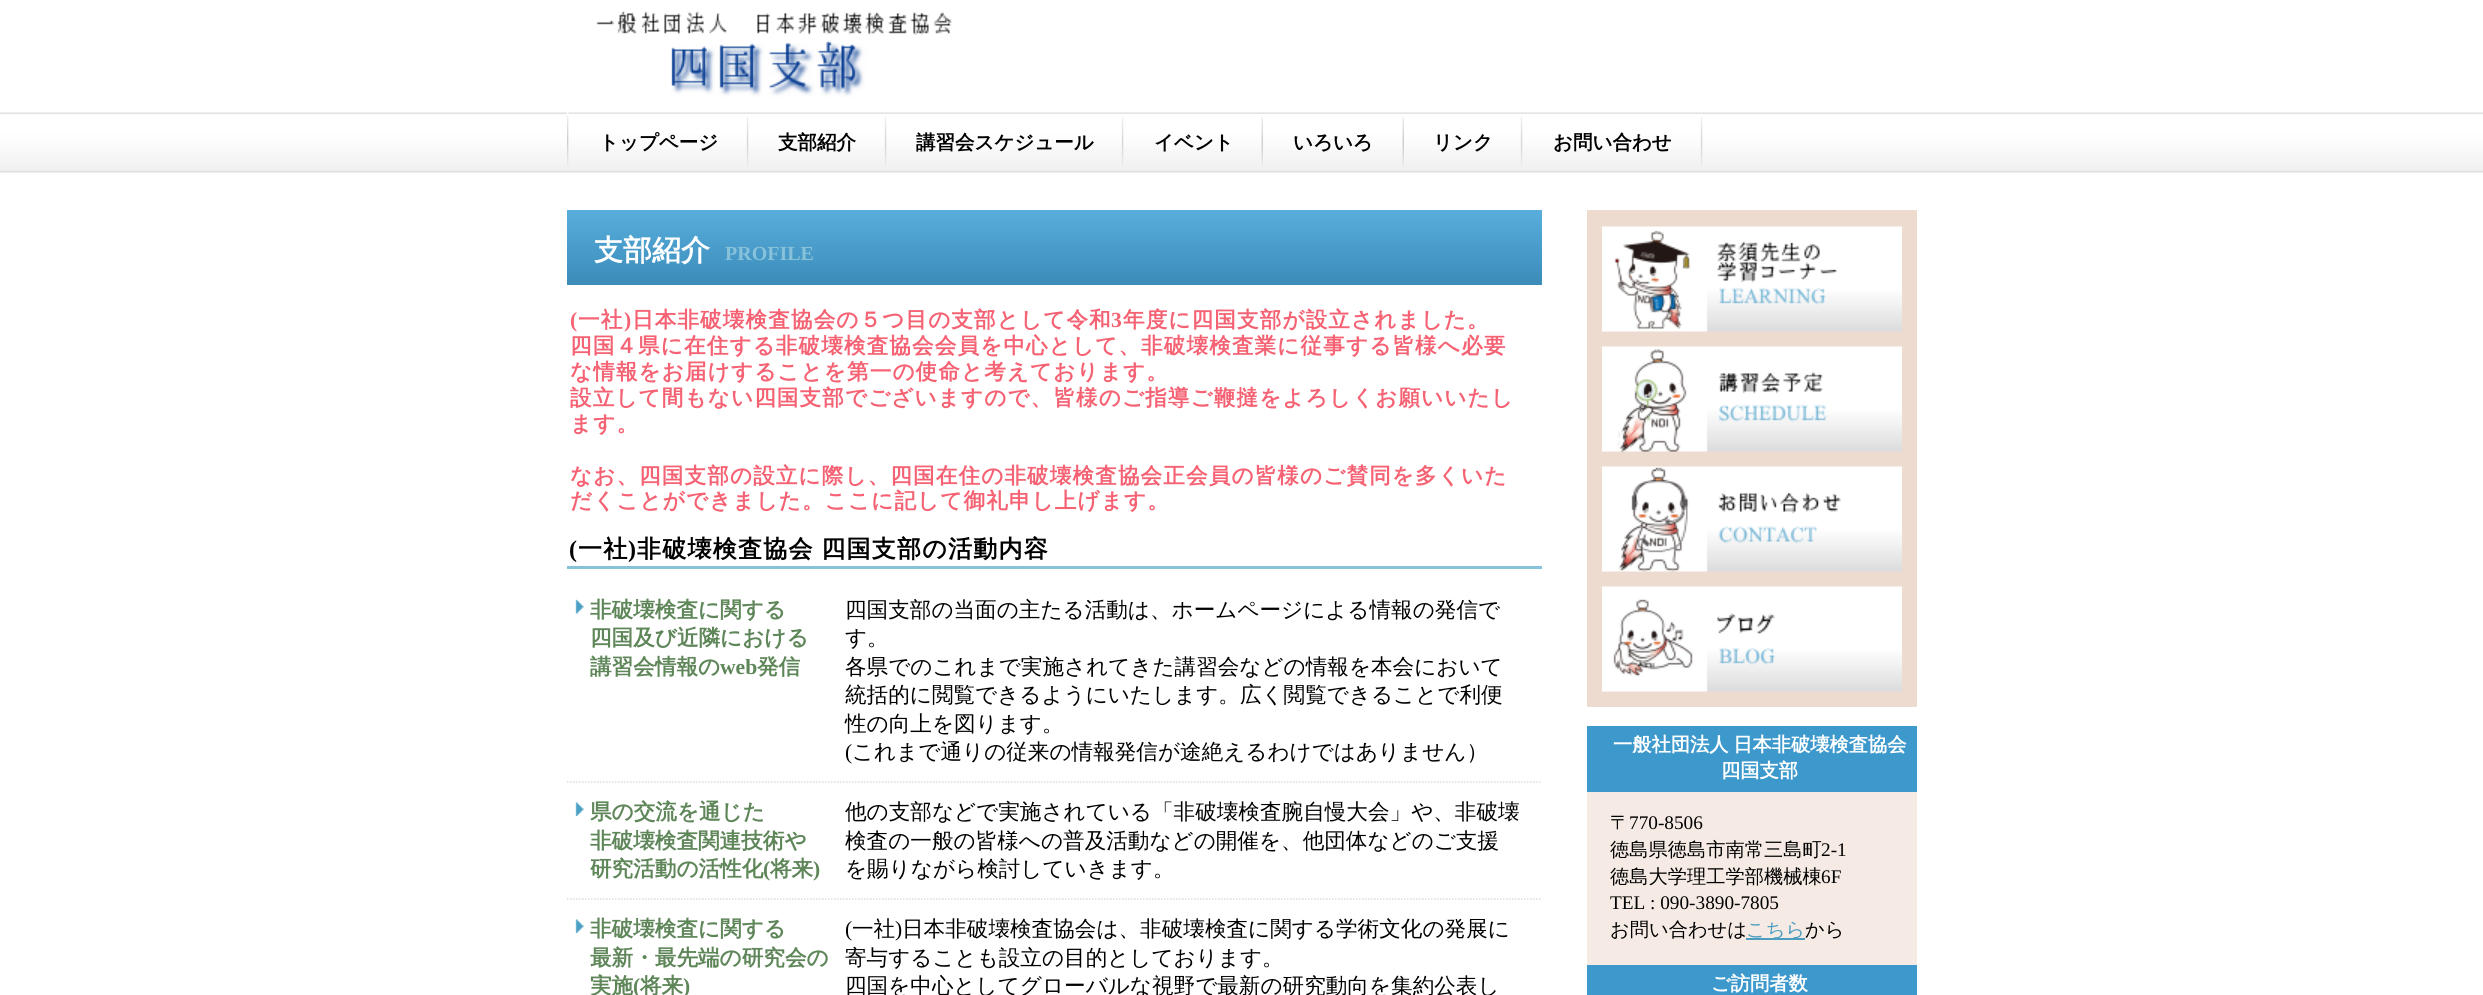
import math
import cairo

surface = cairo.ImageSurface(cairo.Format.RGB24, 2483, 995)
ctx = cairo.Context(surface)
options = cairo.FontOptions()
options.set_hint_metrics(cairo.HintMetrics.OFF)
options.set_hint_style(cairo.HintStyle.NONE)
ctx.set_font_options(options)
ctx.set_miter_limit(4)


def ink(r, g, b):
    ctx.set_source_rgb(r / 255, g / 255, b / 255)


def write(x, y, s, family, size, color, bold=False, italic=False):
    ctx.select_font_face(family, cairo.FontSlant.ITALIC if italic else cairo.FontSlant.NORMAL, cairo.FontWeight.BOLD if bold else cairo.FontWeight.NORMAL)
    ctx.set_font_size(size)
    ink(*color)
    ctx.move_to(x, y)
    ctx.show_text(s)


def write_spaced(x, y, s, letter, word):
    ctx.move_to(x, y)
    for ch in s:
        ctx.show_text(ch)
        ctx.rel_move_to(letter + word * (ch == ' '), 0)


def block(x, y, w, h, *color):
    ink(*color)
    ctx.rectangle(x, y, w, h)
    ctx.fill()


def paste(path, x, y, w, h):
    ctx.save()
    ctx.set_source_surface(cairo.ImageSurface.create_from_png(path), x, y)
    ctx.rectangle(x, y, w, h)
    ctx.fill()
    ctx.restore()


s1 = dict(family="WenQuanYi Zen Hei", size=19.5, color=(0, 0, 0), bold=True)
s2 = dict(family="WenQuanYi Zen Hei", size=29, color=(255, 255, 255), bold=True)
s3 = dict(family="Liberation Serif", size=20, color=(135, 193, 218), bold=True)
s4 = dict(family="WenQuanYi Zen Hei", size=21.6, color=(94, 134, 89), bold=True)
s5 = dict(family="Liberation Serif", size=21.6, color=(94, 134, 89), bold=True)
s6 = dict(family="WenQuanYi Zen Hei Medium", size=21.6, color=(0, 0, 0))
s7 = dict(family="Liberation Serif", size=21.6, color=(0, 0, 0))
s8 = dict(family="WenQuanYi Zen Hei", size=19.25, color=(255, 255, 255), bold=True)
s9 = dict(family="WenQuanYi Zen Hei Medium", size=19.25, color=(0, 0, 0))
s10 = dict(family="Liberation Serif", size=19.25, color=(0, 0, 0))
s11 = dict(family="WenQuanYi Zen Hei Medium", size=19.25, color=(77, 157, 193))

ink(255, 255, 255)
ctx.paint()
paste("pic1.png", 0, 112, 2483, 61)
paste("pic2.png", 596, 11, 356, 86)
paste("pic3.png", 567, 112, 2, 55)
paste("pic4.png", 568, 114, 181, 53)
write(599, 149, "トップページ", **s1)
paste("pic5.png", 749, 114, 138, 53)
write(778, 149, "支部紹介", **s1)
paste("pic6.png", 887, 114, 237, 53)
write(916, 149, "講習会スケジュール", **s1)
paste("pic7.png", 1124, 114, 139, 53)
write(1154, 149, "イベント", **s1)
paste("pic8.png", 1263, 114, 141, 53)
write(1293, 149, "いろいろ", **s1)
paste("pic9.png", 1404, 114, 119, 53)
write(1433, 149, "リンク", **s1)
paste("pic10.png", 1523, 114, 180, 53)
write(1553, 149, "お問い合わせ", **s1)
paste("pic11.png", 567, 210, 975, 75)
write(594, 260, "支部紹介", **s2)
write(725, 260, "PROFILE", **s3)
ctx.set_font_size(21.6)
ink(245, 98, 115)
write_spaced(570, 327, "(", 1.1, 0)
ctx.select_font_face("WenQuanYi Zen Hei", cairo.FontSlant.NORMAL, cairo.FontWeight.BOLD)
write_spaced(578, 327, "一社", 1.1, 0)
ctx.select_font_face("Liberation Serif", cairo.FontSlant.NORMAL, cairo.FontWeight.BOLD)
write_spaced(624, 327, ")", 1.1, 0)
ctx.select_font_face("WenQuanYi Zen Hei", cairo.FontSlant.NORMAL, cairo.FontWeight.BOLD)
write_spaced(632, 327, "日本非破壊検査協会の５つ目の支部として令和", 1.1, 0)
ctx.select_font_face("Liberation Serif", cairo.FontSlant.NORMAL, cairo.FontWeight.BOLD)
write_spaced(1111, 327, "3", 1.1, 0)
ctx.select_font_face("WenQuanYi Zen Hei", cairo.FontSlant.NORMAL, cairo.FontWeight.BOLD)
write_spaced(1123, 327, "年度に四国支部が設立されました。", 1.1, 0)
write_spaced(570, 353, "四国４県に在住する非破壊検査協会会員を中心として、非破壊検査業に従事する皆様へ必要", 1.1, 0)
write_spaced(570, 379, "な情報をお届けすることを第一の使命と考えております。", 1.1, 0)
write_spaced(570, 405, "設立して間もない四国支部でございますので、皆様のご指導ご鞭撻をよろしくお願いいたし", 1.1, 0)
write_spaced(570, 431, "ます。", 1.1, 0)
write_spaced(570, 483, "なお、四国支部の設立に際し、四国在住の非破壊検査協会正会員の皆様のご賛同を多くいた", 1.1, 0)
write_spaced(570, 508, "だくことができました。ここに記して御礼申し上げます。", 1.1, 0)
block(567, 566, 975, 3, 135, 193, 218)
ctx.select_font_face("Liberation Serif", cairo.FontSlant.NORMAL, cairo.FontWeight.BOLD)
ctx.set_font_size(24)
ink(0, 0, 0)
write_spaced(569, 557, "(", 1.25, 0)
ctx.select_font_face("WenQuanYi Zen Hei", cairo.FontSlant.NORMAL, cairo.FontWeight.BOLD)
write_spaced(578, 557, "一社", 1.25, 0)
ctx.select_font_face("Liberation Serif", cairo.FontSlant.NORMAL, cairo.FontWeight.BOLD)
write_spaced(628, 557, ")", 1.25, 0)
ctx.select_font_face("WenQuanYi Zen Hei", cairo.FontSlant.NORMAL, cairo.FontWeight.BOLD)
write_spaced(637, 557, "非破壊検査協会 四国支部の活動内容", 1.25, -1)
paste("pic12.png", 575, 599, 9, 15)
write(590, 617, "非破壊検査に関する", **s4)
write(590, 645, "四国及び近隣における", **s4)
write(590, 674, "講習会情報の", **s4)
write(720, 674, "web", **s5)
write(757, 674, "発信", **s4)
ctx.new_path()
ctx.move_to(567, 782)
ctx.line_to(1542, 782)
ink(221, 221, 221)
ctx.set_line_width(1.5)
ctx.set_dash([1.5, 1.5])
ctx.stroke()
write(845, 617, "四国支部の当面の主たる活動は、ホームページによる情報の発信で", **s6)
write(845, 645, "す。", **s6)
write(845, 674, "各県でのこれまで実施されてきた講習会などの情報を本会において", **s6)
write(845, 702, "統括的に閲覧できるようにいたします。広く閲覧できることで利便", **s6)
write(845, 731, "性の向上を図ります。", **s6)
write(845, 759, "(", **s7)
write(852, 759, "これまで通りの従来の情報発信が途絶えるわけではありません）", **s6)
paste("pic13.png", 575, 802, 9, 14)
write(590, 819, "県の交流を通じた", **s4)
write(590, 848, "非破壊検査関連技術や", **s4)
write(590, 876, "研究活動の活性化", **s4)
write(763, 876, "(", **s5)
write(770, 876, "将来", **s4)
write(813, 876, ")", **s5)
ctx.new_path()
ctx.move_to(567, 899)
ctx.line_to(1542, 899)
ink(221, 221, 221)
ctx.stroke()
write(845, 819, "他の支部などで実施されている「非破壊検査腕自慢大会」や、非破壊", **s6)
write(845, 848, "検査の一般の皆様への普及活動などの開催を、他団体などのご支援", **s6)
write(845, 876, "を賜りながら検討していきます。", **s6)
paste("pic13.png", 575, 919, 9, 14)
write(590, 936, "非破壊検査に関する", **s4)
write(590, 965, "最新・最先端の研究会の", **s4)
write(590, 993, "実施", **s4)
write(633, 993, "(", **s5)
write(640, 993, "将来", **s4)
write(683, 993, ")", **s5)
write(845, 936, "(", **s7)
write(852, 936, "一社", **s6)
write(895, 936, ")", **s7)
write(902, 936, "日本非破壊検査協会は、非破壊検査に関する学術文化の発展に", **s6)
write(845, 965, "寄与することも設立の目的としております。", **s6)
write(845, 993, "四国を中心としてグローバルな視野で最新の研究動向を集約公表し", **s6)
block(1587, 210, 330, 497, 238, 219, 208)
paste("pic14.png", 1602, 226, 300, 106)
paste("pic15.png", 1602, 346, 300, 106)
paste("pic16.png", 1602, 466, 300, 106)
paste("pic17.png", 1602, 586, 300, 106)
block(1587, 792, 330, 173, 245, 235, 228)
block(1587, 726, 330, 66, 61, 153, 204)
ctx.select_font_face("WenQuanYi Zen Hei", cairo.FontSlant.NORMAL, cairo.FontWeight.BOLD)
ctx.set_font_size(19.25)
ink(255, 255, 255)
write_spaced(1613, 751, "一般社団法人 日本非破壊検査協会", 0, -1)
write(1721, 777, "四国支部", **s8)
write(1610, 829, "〒", **s9)
write(1629, 829, "770-8506", **s10)
write(1610, 856, "徳島県徳島市南常三島町", **s9)
write(1821, 856, "2-1", **s10)
write(1610, 883, "徳島大学理工学部機械棟", **s9)
write(1821, 883, "6F", **s10)
write(1610, 909, "TEL : 090-3890-7805", **s10)
write(1610, 936, "お問い合わせは", **s9)
block(1746, 938, 59, 2, 77, 157, 193)
write(1746, 936, "こちら", **s11)
write(1805, 936, "から", **s9)
block(1587, 965, 330, 30, 61, 153, 204)
write(1711, 990, "ご訪問者数", **s8)
surface.write_to_png("screenshot.png")
